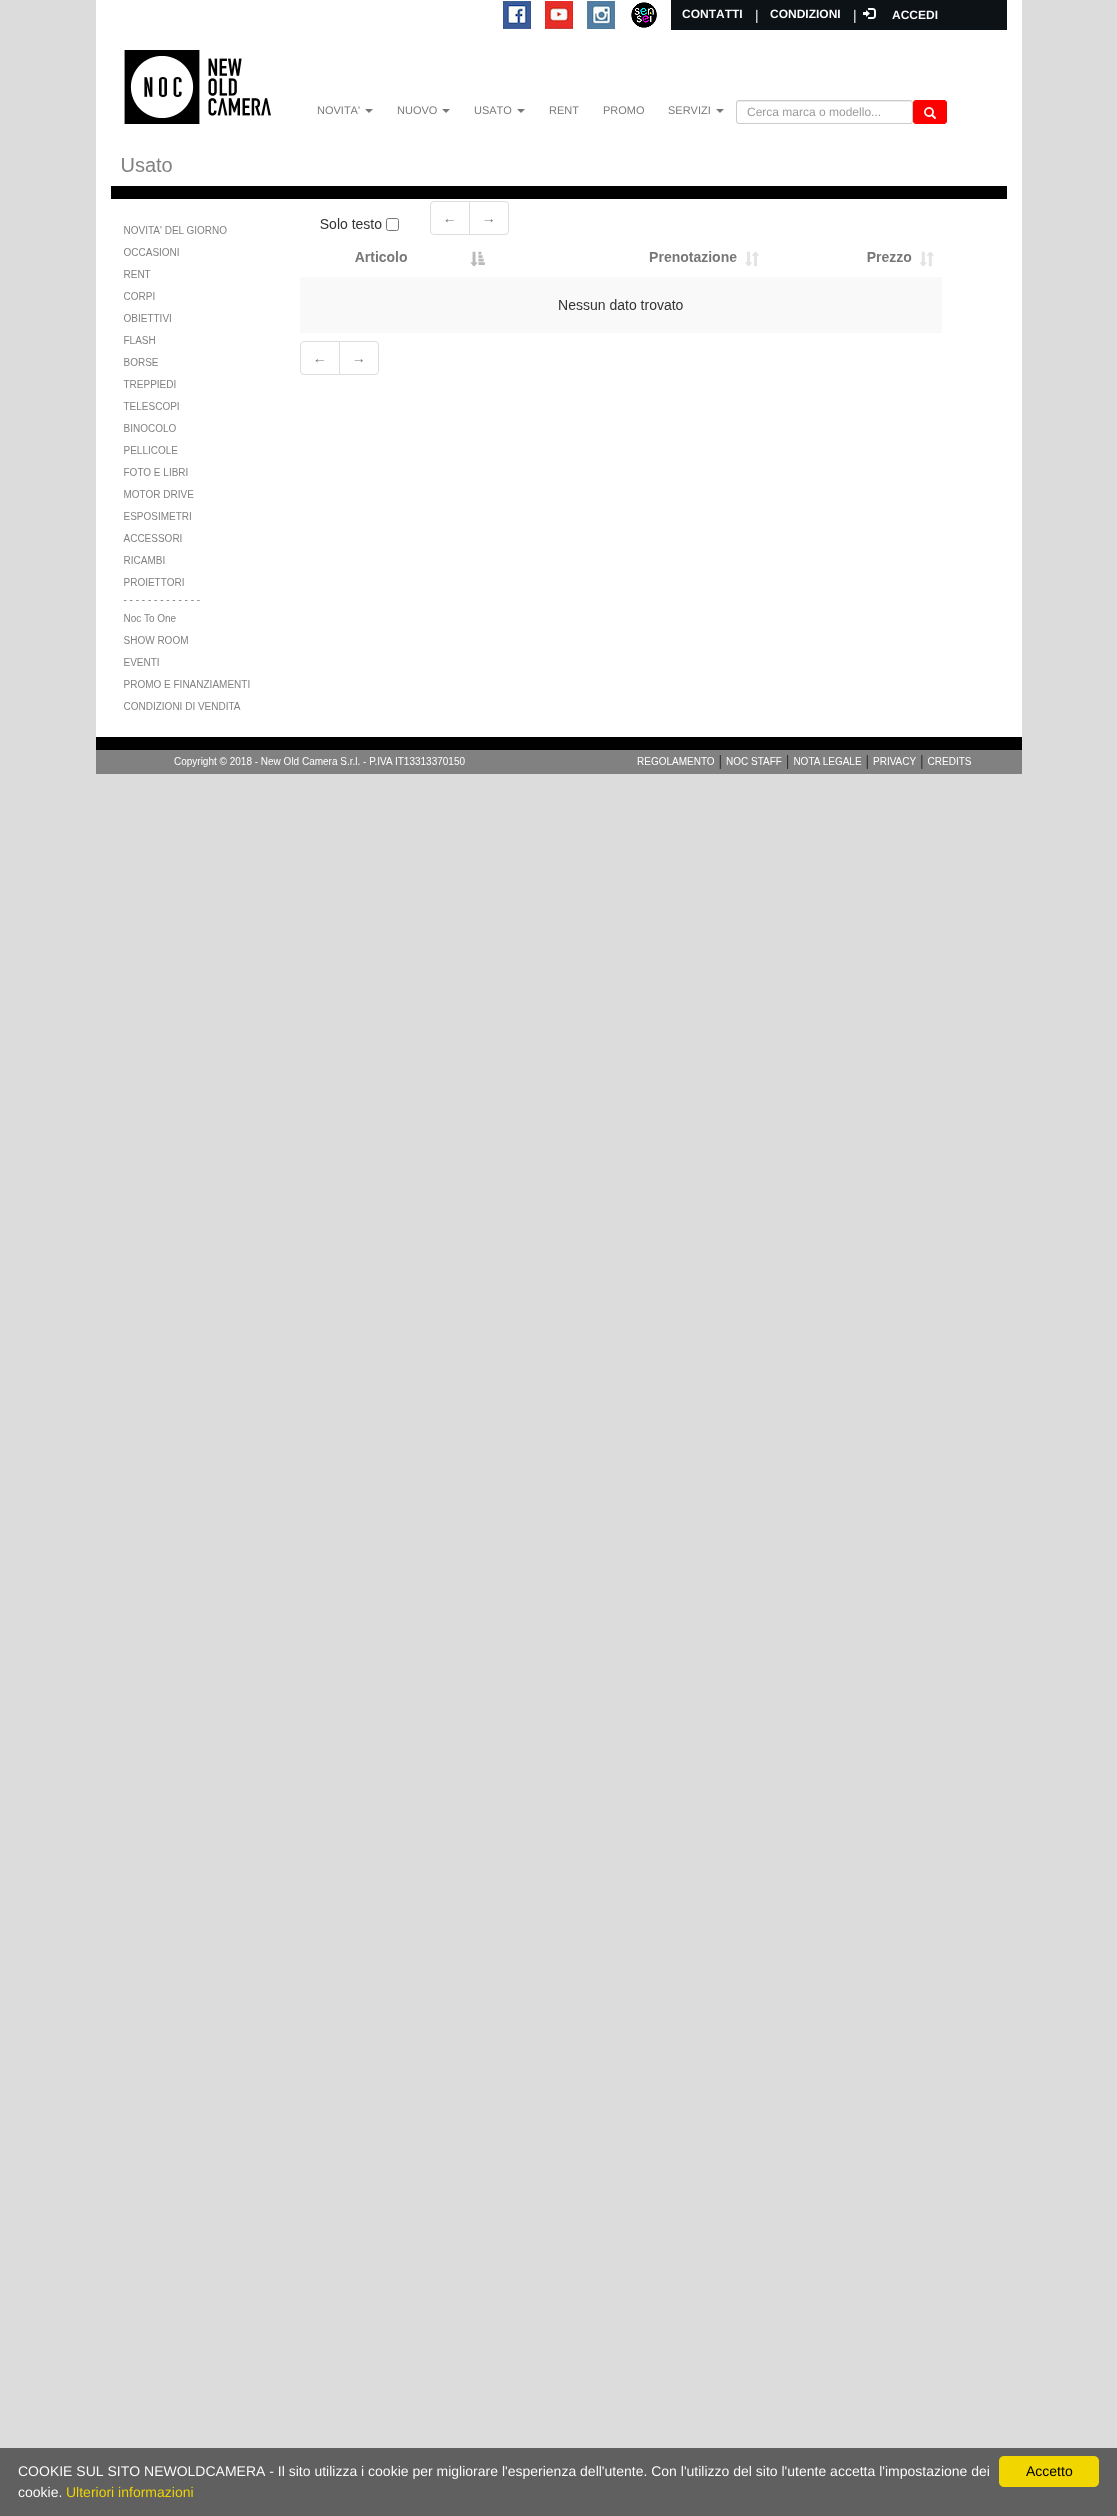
import math
import cairo

surface = cairo.ImageSurface(cairo.Format.RGB24, 1117, 2516)
ctx = cairo.Context(surface)
options = cairo.FontOptions()
options.set_hint_metrics(cairo.HintMetrics.OFF)
options.set_hint_style(cairo.HintStyle.NONE)
ctx.set_font_options(options)
ctx.set_miter_limit(4)


def ink(r, g, b):
    ctx.set_source_rgb(r / 255, g / 255, b / 255)


def write(x, y, s, family, size, color, bold=False, italic=False):
    ctx.select_font_face(family, cairo.FontSlant.ITALIC if italic else cairo.FontSlant.NORMAL, cairo.FontWeight.BOLD if bold else cairo.FontWeight.NORMAL)
    ctx.set_font_size(size)
    ink(*color)
    ctx.move_to(x, y)
    ctx.show_text(s)


def block(x, y, w, h, *color):
    ink(*color)
    ctx.rectangle(x, y, w, h)
    ctx.fill()


def round_path(x, y, w, h, r):
    ctx.new_sub_path()
    for i, (u, v) in enumerate([(x + w - r, y + h - r), (x + r, y + h - r), (x + r, y + r), (x + w - r, y + r)]):
        ctx.arc(u, v, r, i * math.pi / 2, (i + 1) * math.pi / 2)
    ctx.close_path()


def paste(path, x, y, w, h):
    ctx.save()
    ctx.set_source_surface(cairo.ImageSurface.create_from_png(path), x, y)
    ctx.rectangle(x, y, w, h)
    ctx.fill()
    ctx.restore()


s1 = dict(family="Liberation Sans", size=12, color=(255, 255, 255), bold=True)
s2 = dict(family="Liberation Sans", size=14, color=(255, 255, 255))
s3 = dict(family="Liberation Sans", size=11, color=(119, 119, 119))
s4 = dict(family="Liberation Sans", size=12, color=(153, 153, 153))
s5 = dict(family="Liberation Sans", size=14, color=(241, 214, 0))
s6 = dict(family="Liberation Sans", size=14, color=(0, 0, 0))

ink(220, 220, 220)
ctx.paint()
block(96, 0, 926, 144, 255, 255, 255)
paste("pic1.png", 503, 1, 28, 28)
paste("pic2.png", 545, 1, 28, 28)
paste("pic3.png", 587, 1, 28, 28)
paste("pic4.png", 631, 2, 26, 26)
block(671, 0, 336, 30, 13, 18, 22)
write(682, 18, "CONTATTI", **s1)
write(755, 20, "|", **s2)
write(770, 18, "CONDIZIONI", **s1)
write(853, 20, "|", **s2)
paste("pic5.png", 863, 8, 13, 11)
write(892, 19, "ACCEDI", **s1)
paste("pic6.png", 124, 50, 147, 74)
write(317, 114, "NOVITA'", **s3)
ctx.new_path()
ctx.move_to(365, 109)
ctx.line_to(373, 109)
ctx.line_to(369, 113)
ctx.close_path()
ctx.fill()
write(397, 114, "NUOVO", **s3)
ctx.new_path()
ctx.move_to(442, 109)
ctx.line_to(450, 109)
ctx.line_to(446, 113)
ctx.close_path()
ctx.fill()
write(474, 114, "USATO", **s3)
ctx.new_path()
ctx.move_to(517, 109)
ctx.line_to(525, 109)
ctx.line_to(521, 113)
ctx.close_path()
ctx.fill()
write(549, 114, "RENT", **s3)
write(603, 114, "PROMO", **s3)
write(668, 114, "SERVIZI", **s3)
ctx.new_path()
ctx.move_to(716, 109)
ctx.line_to(724, 109)
ctx.line_to(720, 113)
ctx.close_path()
ctx.fill()
ink(236, 236, 236)
ctx.new_path()
ctx.move_to(739, 102)
ctx.line_to(910, 102)
ctx.curve_to(911, 102, 912, 103, 912, 104)
ctx.curve_to(912, 103, 912, 101, 910, 101)
ctx.line_to(739, 101)
ctx.curve_to(737, 101, 737, 103, 737, 104)
ctx.curve_to(737, 103, 738, 102, 739, 102)
ctx.close_path()
ctx.fill()
round_path(736.5, 100.5, 176, 23, 2.5)
ink(204, 204, 204)
ctx.set_line_width(1)
ctx.stroke()
write(747, 116, "Cerca marca o modello...", **s4)
ink(255, 0, 0)
round_path(913.5, 100.5, 33, 23, 2.5)
ctx.fill_preserve()
ctx.stroke()
paste("pic7.png", 924, 107, 12, 12)
paste("pic8.png", 96, 144, 926, 630)
block(0, 2448, 1117, 68, 96, 96, 96)
write(18, 2476, "COOKIE SUL SITO NEWOLDCAMERA - Il sito utilizza i cookie per migliorare l'esperienza dell'utente. Con l'utilizzo del sito l'utente accetta l'impostazione dei", **s2)
write(18, 2497, "cookie.", **s2)
write(66, 2497, "Ulteriori informazioni", **s5)
round_path(999, 2456, 100, 31, 5)
ctx.fill()
write(1026, 2476, "Accetto", **s6)
surface.write_to_png("screenshot.png")
